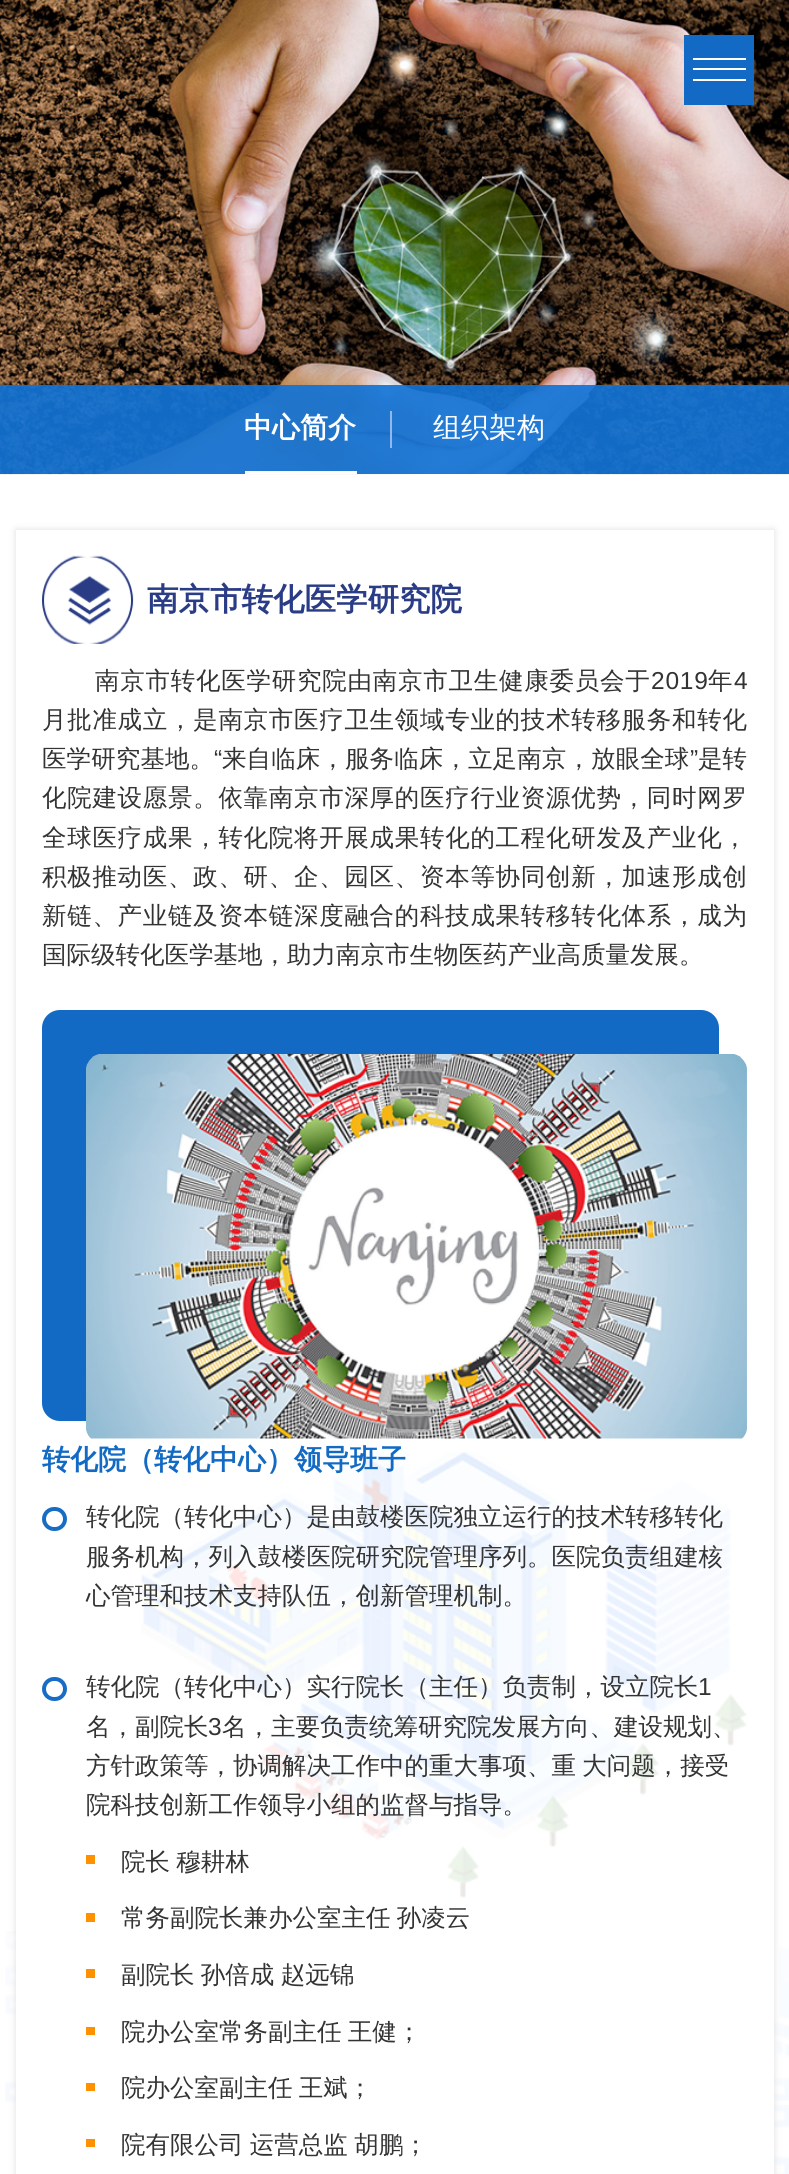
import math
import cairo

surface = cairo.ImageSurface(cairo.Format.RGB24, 789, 2174)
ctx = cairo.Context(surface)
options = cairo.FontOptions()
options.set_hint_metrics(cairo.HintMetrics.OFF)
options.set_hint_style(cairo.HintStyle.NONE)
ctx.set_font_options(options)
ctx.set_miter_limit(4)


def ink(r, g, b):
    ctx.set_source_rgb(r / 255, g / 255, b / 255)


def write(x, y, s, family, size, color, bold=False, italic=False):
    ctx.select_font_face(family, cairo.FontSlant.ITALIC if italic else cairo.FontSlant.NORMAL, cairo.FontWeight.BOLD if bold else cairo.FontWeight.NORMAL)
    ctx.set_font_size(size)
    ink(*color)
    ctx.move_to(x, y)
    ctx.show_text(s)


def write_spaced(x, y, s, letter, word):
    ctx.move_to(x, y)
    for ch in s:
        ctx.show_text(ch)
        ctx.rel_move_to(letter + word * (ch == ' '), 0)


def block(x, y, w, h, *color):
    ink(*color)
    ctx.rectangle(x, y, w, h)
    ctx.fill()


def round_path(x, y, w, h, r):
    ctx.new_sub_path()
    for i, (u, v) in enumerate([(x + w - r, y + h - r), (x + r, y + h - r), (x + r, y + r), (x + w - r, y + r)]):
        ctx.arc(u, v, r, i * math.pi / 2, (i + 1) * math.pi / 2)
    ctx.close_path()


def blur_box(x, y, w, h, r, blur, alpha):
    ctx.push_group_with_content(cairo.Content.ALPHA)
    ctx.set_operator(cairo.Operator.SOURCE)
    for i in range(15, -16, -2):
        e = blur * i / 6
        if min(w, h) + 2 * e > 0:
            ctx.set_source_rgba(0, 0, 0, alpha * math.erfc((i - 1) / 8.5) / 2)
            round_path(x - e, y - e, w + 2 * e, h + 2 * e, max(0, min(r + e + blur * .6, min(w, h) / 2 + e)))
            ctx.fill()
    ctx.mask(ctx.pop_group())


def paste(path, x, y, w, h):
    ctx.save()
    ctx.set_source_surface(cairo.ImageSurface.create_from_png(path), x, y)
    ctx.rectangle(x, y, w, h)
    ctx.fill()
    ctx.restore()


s1 = dict(family="WenQuanYi Zen Hei", size=28, color=(255, 255, 255), bold=True)
s2 = dict(family="WenQuanYi Zen Hei Medium", size=28, color=(255, 255, 255))
s3 = dict(family="WenQuanYi Zen Hei", size=31.5, color=(42, 60, 134), bold=True)
s4 = dict(family="WenQuanYi Zen Hei Medium", size=24.5, color=(51, 51, 51))
s5 = dict(family="WenQuanYi Zen Hei", size=28, color=(18, 106, 196), bold=True)
s6 = dict(family="Liberation Sans", size=24.5, color=(51, 51, 51))

ink(255, 255, 255)
ctx.paint()
paste("pic1.png", 0, 0, 789, 475)
block(684, 35, 70, 70, 18, 106, 196)
block(693, 58, 53, 2, 255, 255, 255)
block(693, 68, 53, 2, 255, 255, 255)
block(693, 79, 53, 2, 255, 255, 255)
ctx.set_source_rgba(0.075, 0.451, 0.835, 0.92)
ctx.rectangle(0, 385, 789, 89)
ctx.fill()
block(245, 471, 112, 3, 255, 255, 255)
write(244, 437, "中心简介", **s1)
block(390, 411, 2, 37, 145, 184, 238)
write(433, 437, "组织架构", **s2)
paste("pic2.png", 5, 1931, 784, 243)
ink(222, 222, 222)
blur_box(16, 530, 758, 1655, 0, 3.5, 1)
block(16, 530, 758, 1644, 255, 255, 255)
paste("pic3.png", 42, 555, 92, 89)
write(147, 610, "南京市转化医学研究院", **s3)
ctx.select_font_face("WenQuanYi Zen Hei Medium")
ctx.set_font_size(24.5)
ink(51, 51, 51)
write_spaced(95, 689, "南京市转化医学研究院由南京市卫生健康委员会于", 0.75, 0)
ctx.select_font_face("Liberation Sans")
write_spaced(651, 689, "2019", 0.75, 0)
ctx.select_font_face("WenQuanYi Zen Hei Medium")
write_spaced(708, 689, "年", 0.75, 0)
ctx.select_font_face("Liberation Sans")
write_spaced(734, 689, "4", 0.75, 0)
ctx.select_font_face("WenQuanYi Zen Hei Medium")
write_spaced(42, 728, "月批准成立，是南京市医疗卫生领域专业的技术转移服务和转化", 0.7, 0)
write_spaced(42, 767, "医学研究基地。", 0.1, 0)
ctx.select_font_face("Liberation Sans")
write_spaced(214, 767, "“", 0.1, 0)
ctx.select_font_face("WenQuanYi Zen Hei Medium")
write_spaced(222, 767, "来自临床，服务临床，立足南京，放眼全球", 0.1, 0)
ctx.select_font_face("Liberation Sans")
write_spaced(690, 767, "”", 0.1, 0)
ctx.select_font_face("WenQuanYi Zen Hei Medium")
write_spaced(698, 767, "是转", 0.1, 0)
write_spaced(42, 806, "化院建设愿景。依靠南京市深厚的医疗行业资源优势，同时网罗", 0.7, 0)
write_spaced(42, 846, "全球医疗成果，转化院将开展成果转化的工程化研发及产业化，", 0.7, 0)
write_spaced(42, 885, "积极推动医、政、研、企、园区、资本等协同创新，加速形成创", 0.7, 0)
write_spaced(42, 924, "新链、产业链及资本链深度融合的科技成果转移转化体系，成为", 0.7, 0)
write(42, 963, "国际级转化医学基地，助力南京市生物医药产业高质量发展。", **s4)
ink(18, 106, 196)
round_path(42, 1010, 677, 411, 18)
ctx.fill()
paste("pic4.png", 86, 1054, 661, 385)
paste("pic5.png", 141, 1452, 606, 446)
write(42, 1469, "转化院（转化中心）领导班子", **s5)
round_path(44, 1509, 21, 20, 10)
ink(23, 109, 197)
ctx.set_line_width(4)
ctx.stroke()
write(86, 1525, "转化院（转化中心）是由鼓楼医院独立运行的技术转移转化", **s4)
write(86, 1565, "服务机构，列入鼓楼医院研究院管理序列。医院负责组建核", **s4)
write(86, 1604, "心管理和技术支持队伍，创新管理机制。", **s4)
round_path(44, 1679, 21, 20, 10)
ink(23, 109, 197)
ctx.stroke()
write(86, 1695, "转化院（转化中心）实行院长（主任）负责制，设立院长", **s4)
write(698, 1695, "1", **s6)
write(86, 1735, "名，副院长", **s4)
write(208, 1735, "3", **s6)
write(222, 1735, "名，主要负责统筹研究院发展方向、建设规划、", **s4)
write_spaced(86, 1774, "方针政策等，协调解决工作中的重大事项、重 大问题，接受", 0, -1)
write(86, 1813, "院科技创新工作领导小组的监督与指导。", **s4)
block(86, 1855, 9, 9, 255, 144, 0)
ink(51, 51, 51)
write_spaced(121, 1870, "院长 穆耕林", 0, -1)
block(86, 1913, 9, 9, 255, 144, 0)
ink(51, 51, 51)
write_spaced(121, 1926, "常务副院长兼办公室主任 孙凌云", 0, -1)
block(86, 1969, 9, 9, 255, 144, 0)
ink(51, 51, 51)
write_spaced(121, 1983, "副院长 孙倍成 赵远锦", 0, -1)
block(86, 2027, 9, 8, 255, 144, 0)
ink(51, 51, 51)
write_spaced(121, 2040, "院办公室常务副主任 王健；", 0, -1)
block(86, 2083, 9, 8, 255, 144, 0)
ink(51, 51, 51)
write_spaced(121, 2096, "院办公室副主任 王斌；", 0, -1)
block(86, 2139, 9, 8, 255, 144, 0)
ink(51, 51, 51)
write_spaced(121, 2153, "院有限公司 运营总监 胡鹏；", 0, -1)
surface.write_to_png("screenshot.png")
